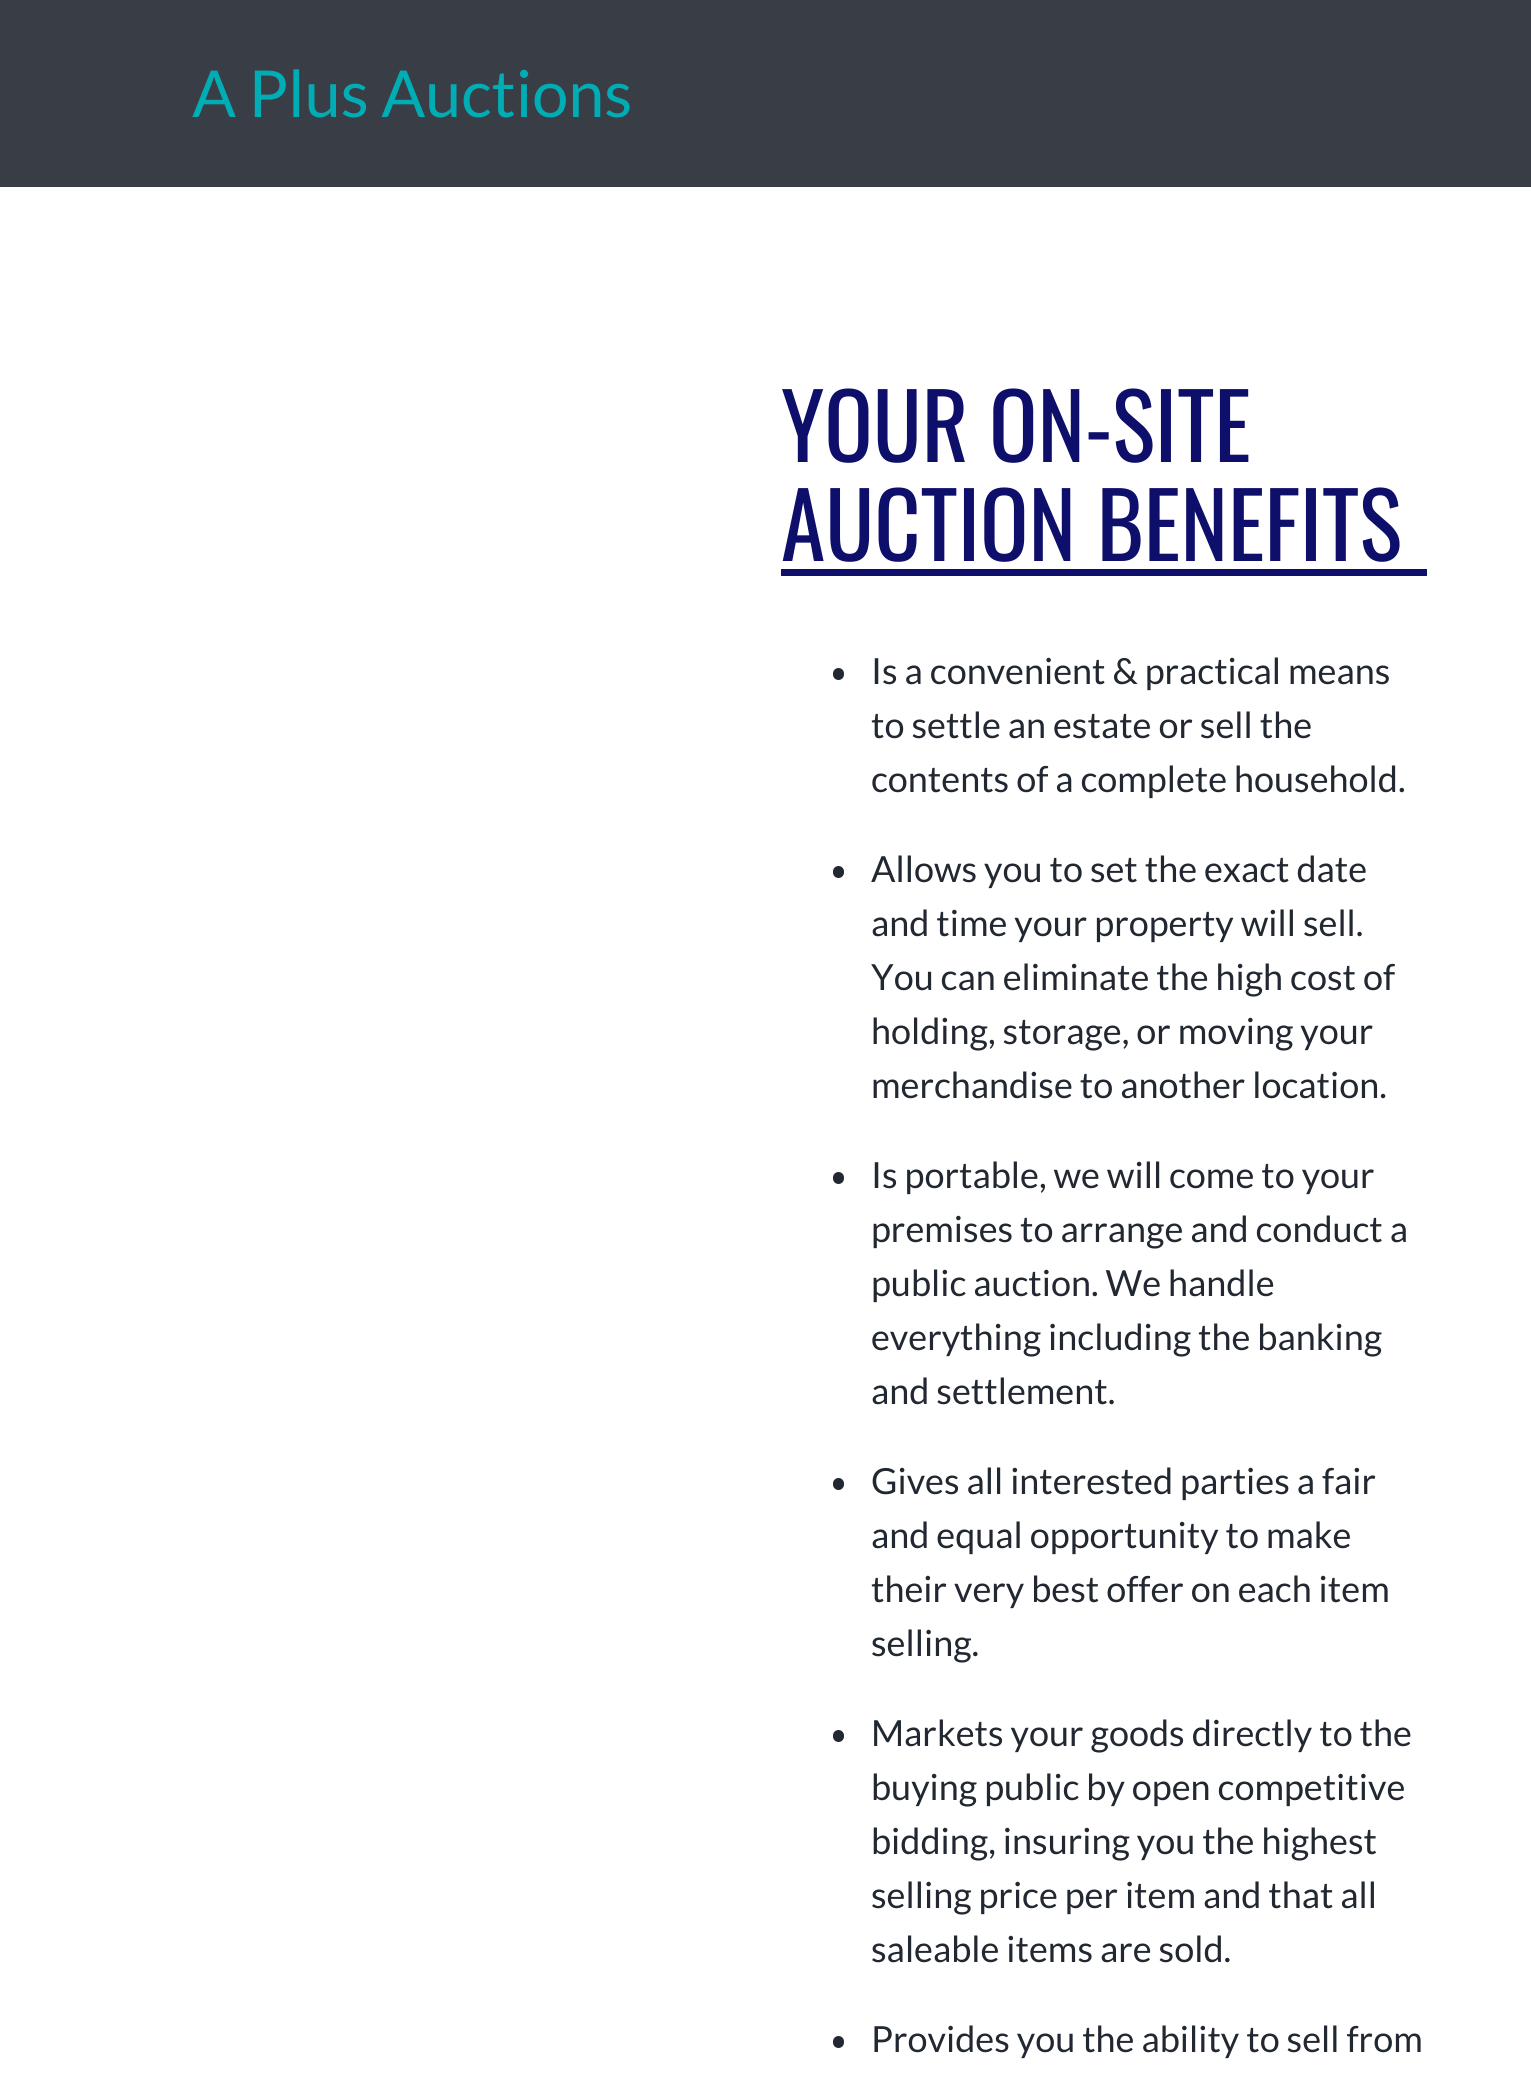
import math
import cairo

surface = cairo.ImageSurface(cairo.Format.RGB24, 1531, 2081)
ctx = cairo.Context(surface)
options = cairo.FontOptions()
options.set_hint_metrics(cairo.HintMetrics.OFF)
options.set_hint_style(cairo.HintStyle.NONE)
ctx.set_font_options(options)
ctx.set_miter_limit(4)


def ink(r, g, b):
    ctx.set_source_rgb(r / 255, g / 255, b / 255)


def write(x, y, s, family, size, color, bold=False, italic=False):
    ctx.select_font_face(family, cairo.FontSlant.ITALIC if italic else cairo.FontSlant.NORMAL, cairo.FontWeight.BOLD if bold else cairo.FontWeight.NORMAL)
    ctx.set_font_size(size)
    ink(*color)
    ctx.move_to(x, y)
    ctx.show_text(s)


def block(x, y, w, h, *color):
    ink(*color)
    ctx.rectangle(x, y, w, h)
    ctx.fill()


def round_path(x, y, w, h, r):
    ctx.new_sub_path()
    for i, (u, v) in enumerate([(x + w - r, y + h - r), (x + r, y + h - r), (x + r, y + r), (x + w - r, y + r)]):
        ctx.arc(u, v, r, i * math.pi / 2, (i + 1) * math.pi / 2)
    ctx.close_path()


s1 = dict(family="Lato", size=64.75, color=(0, 173, 181))
s2 = dict(family="Oswald", size=90, color=(14, 14, 107))
s3 = dict(family="Lato", size=36, color=(34, 40, 49))

ink(255, 255, 255)
ctx.paint()
block(0, 0, 1531, 187, 57, 62, 70)
write(192, 117, "A Plus Auctions", **s1)
block(781, 569, 646, 7, 14, 14, 107)
write(781, 462, "YOUR ON-SITE", **s2)
write(781, 561, "AUCTION BENEFITS", **s2)
ink(34, 40, 49)
round_path(833, 668, 11, 12, 5.5)
ctx.fill()
write(871, 684, "Is a convenient & practical means", **s3)
write(871, 738, "to settle an estate or sell the", **s3)
write(871, 792, "contents of a complete household.", **s3)
round_path(833, 866, 11, 12, 5.5)
ctx.fill()
write(871, 882, "Allows you to set the exact date", **s3)
write(871, 936, "and time your property will sell.", **s3)
write(871, 990, "You can eliminate the high cost of", **s3)
write(871, 1044, "holding, storage, or moving your", **s3)
write(871, 1098, "merchandise to another location.", **s3)
round_path(833, 1172, 11, 12, 5.5)
ctx.fill()
write(871, 1188, "Is portable, we will come to your", **s3)
write(871, 1242, "premises to arrange and conduct a", **s3)
write(871, 1296, "public auction. We handle", **s3)
write(871, 1350, "everything including the banking", **s3)
write(871, 1404, "and settlement.", **s3)
round_path(833, 1478, 11, 12, 5.5)
ctx.fill()
write(871, 1494, "Gives all interested parties a fair", **s3)
write(871, 1548, "and equal opportunity to make", **s3)
write(871, 1602, "their very best offer on each item", **s3)
write(871, 1656, "selling.", **s3)
round_path(833, 1730, 11, 12, 5.5)
ctx.fill()
write(871, 1746, "Markets your goods directly to the", **s3)
write(871, 1800, "buying public by open competitive", **s3)
write(871, 1854, "bidding, insuring you the highest", **s3)
write(871, 1908, "selling price per item and that all", **s3)
write(871, 1962, "saleable items are sold.", **s3)
round_path(833, 2036, 11, 12, 5.5)
ctx.fill()
write(871, 2052, "Provides you the ability to sell from", **s3)
surface.write_to_png("screenshot.png")
